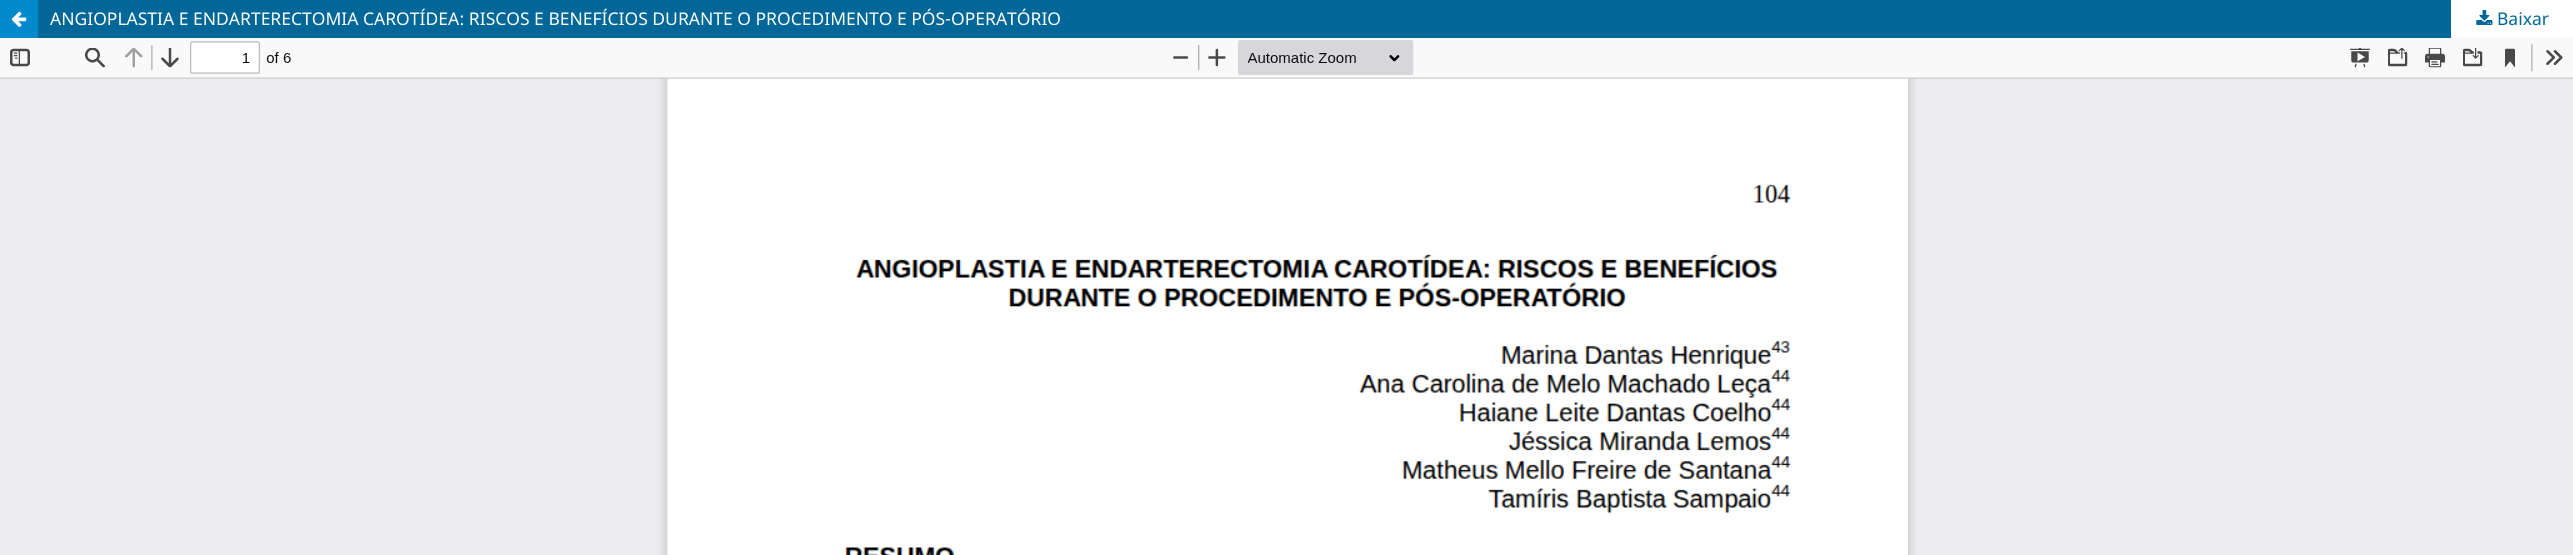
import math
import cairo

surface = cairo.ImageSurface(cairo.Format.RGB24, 2573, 555)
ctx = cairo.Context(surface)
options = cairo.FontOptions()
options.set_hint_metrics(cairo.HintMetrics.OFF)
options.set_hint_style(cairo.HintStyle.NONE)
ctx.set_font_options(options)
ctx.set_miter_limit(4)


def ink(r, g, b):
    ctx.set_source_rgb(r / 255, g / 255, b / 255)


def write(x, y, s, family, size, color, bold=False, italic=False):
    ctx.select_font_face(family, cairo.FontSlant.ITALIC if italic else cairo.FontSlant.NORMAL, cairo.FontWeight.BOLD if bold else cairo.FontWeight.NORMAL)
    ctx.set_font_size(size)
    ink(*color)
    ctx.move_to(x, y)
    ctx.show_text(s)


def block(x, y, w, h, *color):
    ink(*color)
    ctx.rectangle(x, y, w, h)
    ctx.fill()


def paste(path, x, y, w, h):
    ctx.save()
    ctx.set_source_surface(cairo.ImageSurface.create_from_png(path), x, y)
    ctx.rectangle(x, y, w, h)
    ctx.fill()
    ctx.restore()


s1 = dict(family="Noto Sans", size=17.5, color=(255, 255, 255))
s2 = dict(family="Noto Sans", size=17.5, color=(0, 103, 152))

ink(255, 255, 255)
ctx.paint()
block(38, 0, 2413, 38, 0, 103, 152)
block(0, 0, 38, 38, 0, 138, 203)
paste("pic1.png", 11, 11, 16, 16)
write(50, 25, "ANGIOPLASTIA E ENDARTERECTOMIA CAROTÍDEA: RISCOS E BENEFÍCIOS DURANTE O PROCEDIMENTO E PÓS-OPERATÓRIO", **s1)
paste("pic2.png", 2476, 10, 17, 15)
write(2497, 25, "Baixar", **s2)
paste("pic3.png", 0, 38, 2573, 517)
surface.write_to_png("screenshot.png")
